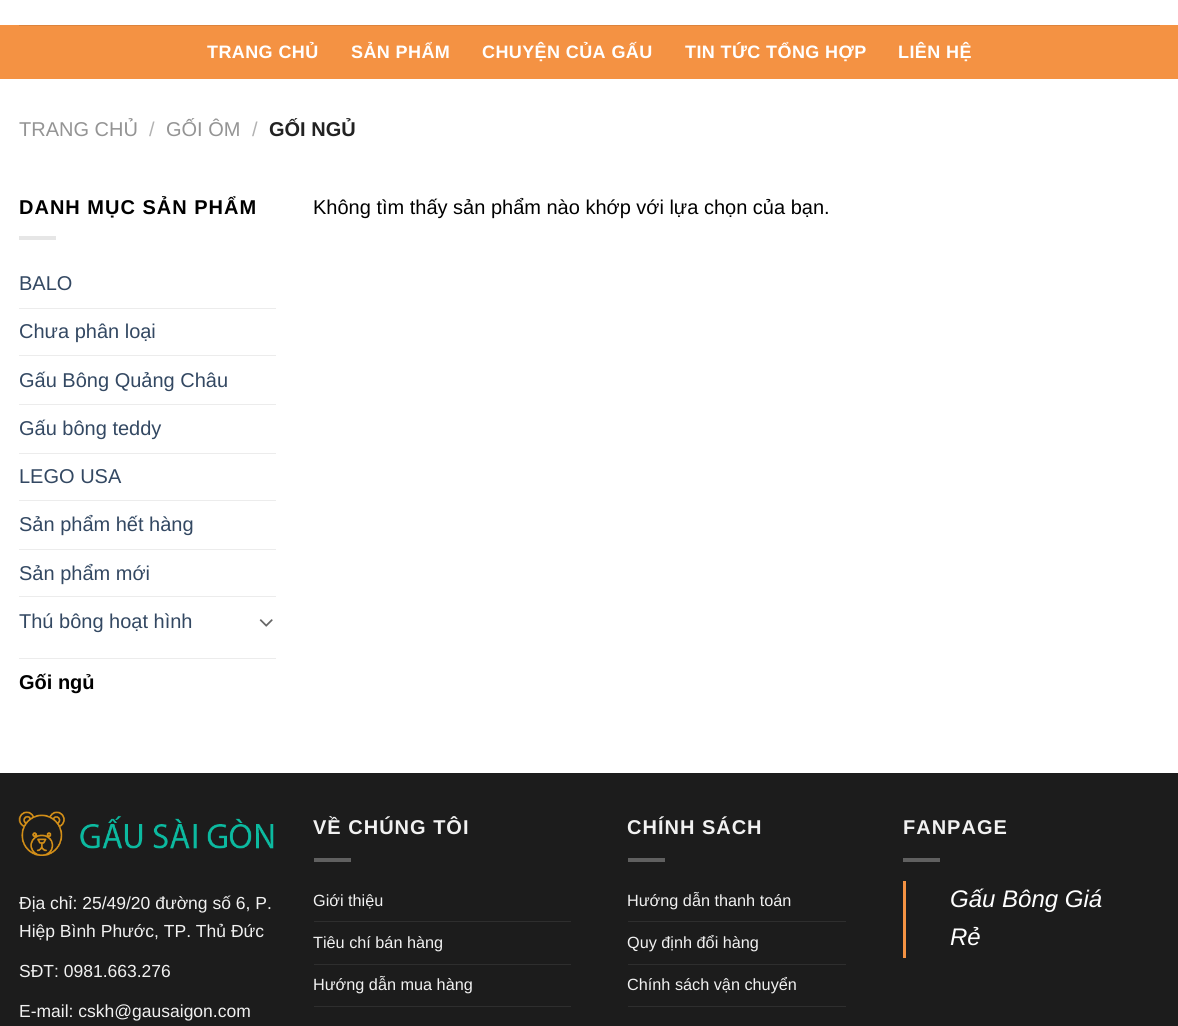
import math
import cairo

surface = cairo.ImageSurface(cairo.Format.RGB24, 1178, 1026)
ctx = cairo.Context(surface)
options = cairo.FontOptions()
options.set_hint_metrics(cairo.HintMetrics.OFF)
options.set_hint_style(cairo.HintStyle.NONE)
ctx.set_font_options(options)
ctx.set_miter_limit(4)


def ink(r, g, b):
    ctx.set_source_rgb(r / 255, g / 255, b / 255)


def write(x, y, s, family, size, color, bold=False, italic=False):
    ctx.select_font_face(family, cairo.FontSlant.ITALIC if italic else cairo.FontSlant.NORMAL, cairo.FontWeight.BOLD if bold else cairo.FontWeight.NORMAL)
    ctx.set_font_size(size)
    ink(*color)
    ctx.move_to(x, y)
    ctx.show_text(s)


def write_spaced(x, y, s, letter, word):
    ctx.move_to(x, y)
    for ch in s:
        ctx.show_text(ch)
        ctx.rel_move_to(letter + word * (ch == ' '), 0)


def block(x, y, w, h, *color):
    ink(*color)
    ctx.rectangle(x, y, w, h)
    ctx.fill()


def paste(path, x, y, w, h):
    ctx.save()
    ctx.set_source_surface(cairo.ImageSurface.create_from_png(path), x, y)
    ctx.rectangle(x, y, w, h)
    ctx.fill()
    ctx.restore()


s1 = dict(family="Liberation Sans", size=20, color=(148, 148, 148))
s2 = dict(family="Liberation Sans", size=20, color=(178, 178, 178))
s3 = dict(family="Liberation Sans", size=20, color=(34, 34, 34), bold=True)
s4 = dict(family="Liberation Sans", size=20, color=(51, 72, 98))
s5 = dict(family="Liberation Sans", size=20, color=(0, 0, 0), bold=True)
s6 = dict(family="Liberation Sans", size=20, color=(0, 0, 0))
s7 = dict(family="Liberation Sans", size=17.5, color=(241, 241, 241))
s8 = dict(family="Liberation Sans", size=16.25, color=(241, 241, 241))
s9 = dict(family="Liberation Sans", size=24, color=(255, 255, 255), italic=True)

ink(255, 255, 255)
ctx.paint()
block(0, 25, 1178, 54, 244, 146, 67)
block(19, 25, 1141, 1, 220, 131, 60)
ctx.select_font_face("Liberation Sans", cairo.FontSlant.NORMAL, cairo.FontWeight.BOLD)
ctx.set_font_size(18)
ink(255, 255, 255)
write_spaced(207, 58, "TRANG CHỦ", 0.4, 0)
write_spaced(351, 58, "SẢN PHẨM", 0.4, 0)
write_spaced(482, 58, "CHUYỆN CỦA GẤU", 0.4, 0)
write_spaced(685, 58, "TIN TỨC TỔNG HỢP", 0.4, 0)
write_spaced(898, 58, "LIÊN HỆ", 0.4, 0)
write(19, 136, "TRANG CHỦ", **s1)
write(149, 136, "/", **s2)
write(166, 136, "GỐI ÔM", **s1)
write(252, 136, "/", **s2)
write(269, 136, "GỐI NGỦ", **s3)
ink(0, 0, 0)
write_spaced(19, 214, "DANH MỤC SẢN PHẨM", 1, 0)
block(19, 236, 37, 4, 230, 230, 230)
write(19, 290, "BALO", **s4)
block(19, 308, 257, 1, 236, 236, 236)
write(19, 338, "Chưa phân loại", **s4)
block(19, 355, 257, 1, 236, 236, 236)
write(19, 387, "Gấu Bông Quảng Châu", **s4)
block(19, 404, 257, 1, 236, 236, 236)
write(19, 435, "Gấu bông teddy", **s4)
block(19, 453, 257, 1, 236, 236, 236)
write(19, 483, "LEGO USA", **s4)
block(19, 500, 257, 1, 236, 236, 236)
write(19, 531, "Sản phẩm hết hàng", **s4)
block(19, 549, 257, 1, 236, 236, 236)
write(19, 580, "Sản phẩm mới", **s4)
block(19, 596, 257, 1, 236, 236, 236)
write(19, 628, "Thú bông hoạt hình", **s4)
paste("pic1.png", 259, 619, 14, 8)
block(19, 658, 257, 1, 236, 236, 236)
write(19, 689, "Gối ngủ", **s5)
write(313, 214, "Không tìm thấy sản phẩm nào khớp với lựa chọn của bạn.", **s6)
block(0, 773, 1178, 253, 28, 28, 28)
paste("pic2.png", 18, 811, 256, 45)
write(19, 909, "Địa chỉ: 25/49/20 đường số 6, P.", **s7)
write(19, 937, "Hiệp Bình Phước, TP. Thủ Đức", **s7)
write(19, 977, "SĐT: 0981.663.276", **s7)
write(19, 1017, "E-mail: cskh@gausaigon.com", **s7)
ctx.select_font_face("Liberation Sans", cairo.FontSlant.NORMAL, cairo.FontWeight.BOLD)
ctx.set_font_size(20)
write_spaced(313, 834, "VỀ CHÚNG TÔI", 1, 0)
block(314, 858, 37, 4, 96, 96, 96)
write(313, 906, "Giới thiệu", **s8)
block(314, 921, 257, 1, 46, 46, 46)
write(313, 948, "Tiêu chí bán hàng", **s8)
block(314, 964, 257, 1, 46, 46, 46)
write(313, 990, "Hướng dẫn mua hàng", **s8)
block(314, 1006, 257, 1, 46, 46, 46)
ctx.select_font_face("Liberation Sans", cairo.FontSlant.NORMAL, cairo.FontWeight.BOLD)
ctx.set_font_size(20)
ink(241, 241, 241)
write_spaced(627, 834, "CHÍNH SÁCH", 1, 0)
block(628, 858, 37, 4, 96, 96, 96)
write(627, 906, "Hướng dẫn thanh toán", **s8)
block(628, 921, 218, 1, 46, 46, 46)
write(627, 948, "Quy định đổi hàng", **s8)
block(628, 964, 218, 1, 46, 46, 46)
write(627, 990, "Chính sách vận chuyển", **s8)
block(628, 1006, 218, 1, 46, 46, 46)
ctx.select_font_face("Liberation Sans", cairo.FontSlant.NORMAL, cairo.FontWeight.BOLD)
ctx.set_font_size(20)
ink(241, 241, 241)
write_spaced(903, 834, "FANPAGE", 1, 0)
block(903, 858, 37, 4, 96, 96, 96)
block(903, 881, 3, 77, 244, 146, 67)
write(950, 907, "Gấu Bông Giá", **s9)
write(950, 945, "Rẻ", **s9)
surface.write_to_png("screenshot.png")
